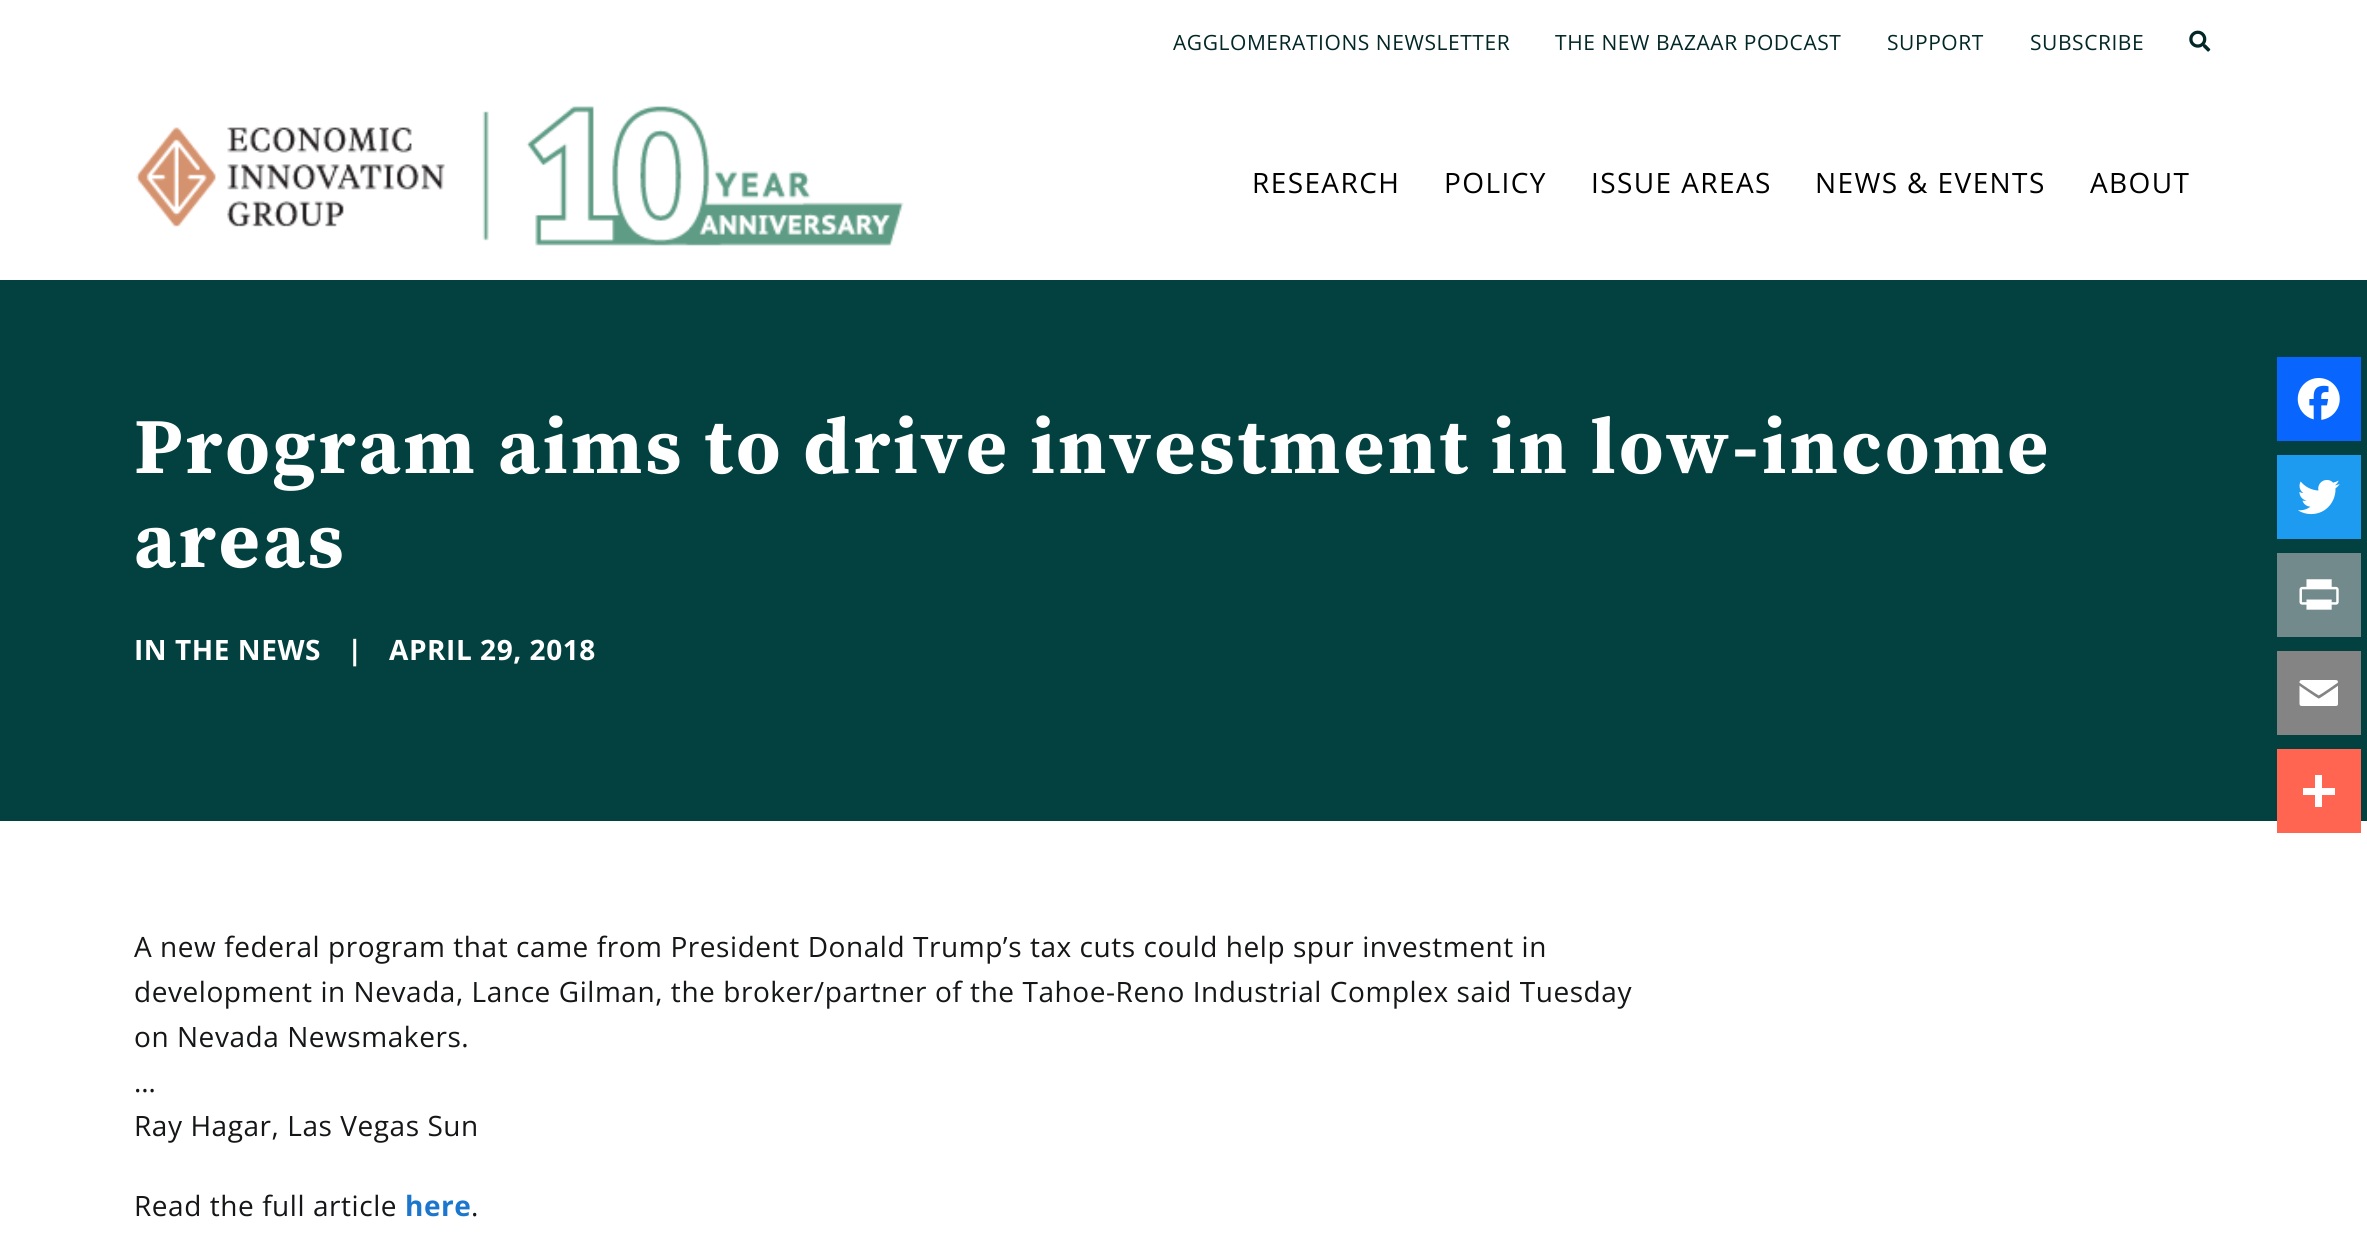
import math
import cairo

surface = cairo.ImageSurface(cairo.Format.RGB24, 2367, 1252)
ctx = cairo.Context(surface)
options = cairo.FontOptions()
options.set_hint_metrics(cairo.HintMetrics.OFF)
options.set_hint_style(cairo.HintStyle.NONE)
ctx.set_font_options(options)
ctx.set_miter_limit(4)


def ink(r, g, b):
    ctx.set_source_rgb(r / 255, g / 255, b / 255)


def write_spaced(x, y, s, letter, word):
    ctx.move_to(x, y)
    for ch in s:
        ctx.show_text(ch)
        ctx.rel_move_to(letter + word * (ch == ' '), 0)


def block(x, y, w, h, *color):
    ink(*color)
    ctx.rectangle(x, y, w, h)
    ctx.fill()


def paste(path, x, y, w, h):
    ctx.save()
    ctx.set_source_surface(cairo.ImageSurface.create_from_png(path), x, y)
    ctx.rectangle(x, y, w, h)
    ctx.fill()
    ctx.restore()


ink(255, 255, 255)
ctx.paint()
ctx.select_font_face("Open Sans")
ctx.set_font_size(21)
ink(2, 39, 38)
write_spaced(1173, 50, "AGGLOMERATIONS NEWSLETTER", 0.56, 0)
write_spaced(1555, 50, "THE NEW BAZAAR PODCAST", 0.56, 0)
write_spaced(1887, 50, "SUPPORT", 0.56, 0)
write_spaced(2030, 50, "SUBSCRIBE", 0.56, 0)
paste("pic1.png", 2189, 30, 22, 22)
paste("pic2.png", 136, 106, 768, 140)
ctx.set_font_size(28)
ink(0, 0, 0)
write_spaced(1252, 193, "RESEARCH", 1.4, 0)
write_spaced(1444, 193, "POLICY", 1.4, 0)
write_spaced(1591, 193, "ISSUE AREAS", 1.4, 0)
write_spaced(1815, 193, "NEWS & EVENTS", 1.4, 0)
write_spaced(2090, 193, "ABOUT", 1.4, 0)
block(0, 280, 2367, 541, 2, 65, 64)
ctx.select_font_face("Source Serif Pro", cairo.FontSlant.NORMAL, cairo.FontWeight.BOLD)
ctx.set_font_size(78.75)
ink(255, 255, 255)
write_spaced(134, 473, "Program aims to drive investment in low-income", 3.15, 0)
write_spaced(134, 567, "areas", 3.15, 0)
ctx.select_font_face("Open Sans", cairo.FontSlant.NORMAL, cairo.FontWeight.BOLD)
ctx.set_font_size(28)
write_spaced(134, 660, "IN THE NEWS", 0.56, 0)
write_spaced(347, 660, "|", 0.56, 0)
write_spaced(389, 660, "APRIL 29, 2018", 0.56, 0)
ctx.select_font_face("Open Sans")
ink(20, 22, 23)
write_spaced(134, 957, "A new federal program that came from President Donald Trump’s tax cuts could help spur investment in", 0.56, 0)
write_spaced(134, 1002, "development in Nevada, Lance Gilman, the broker/partner of the Tahoe-Reno Industrial Complex said Tuesday", 0.56, 0)
write_spaced(134, 1047, "on Nevada Newsmakers.", 0.56, 0)
write_spaced(134, 1092, "…", 0.56, 0)
write_spaced(134, 1136, "Ray Hagar, Las Vegas Sun", 0.56, 0)
write_spaced(134, 1216, "Read the full article", 0.56, 0)
ctx.select_font_face("Open Sans", cairo.FontSlant.NORMAL, cairo.FontWeight.BOLD)
ink(27, 118, 204)
write_spaced(405, 1216, "here", 0.56, 0)
ctx.select_font_face("Open Sans")
ink(20, 22, 23)
write_spaced(471, 1216, ".", 0.56, 0)
block(2277, 357, 84, 84, 8, 102, 255)
paste("pic3.png", 2297, 378, 43, 42)
block(2277, 455, 84, 84, 29, 155, 240)
paste("pic4.png", 2298, 479, 42, 36)
block(2277, 553, 84, 84, 115, 138, 141)
paste("pic5.png", 2299, 579, 40, 31)
block(2277, 651, 84, 84, 132, 132, 132)
paste("pic6.png", 2299, 680, 39, 26)
block(2277, 749, 84, 84, 255, 101, 80)
block(2315, 775, 7, 32, 255, 255, 255)
block(2303, 788, 32, 7, 255, 255, 255)
surface.write_to_png("screenshot.png")
